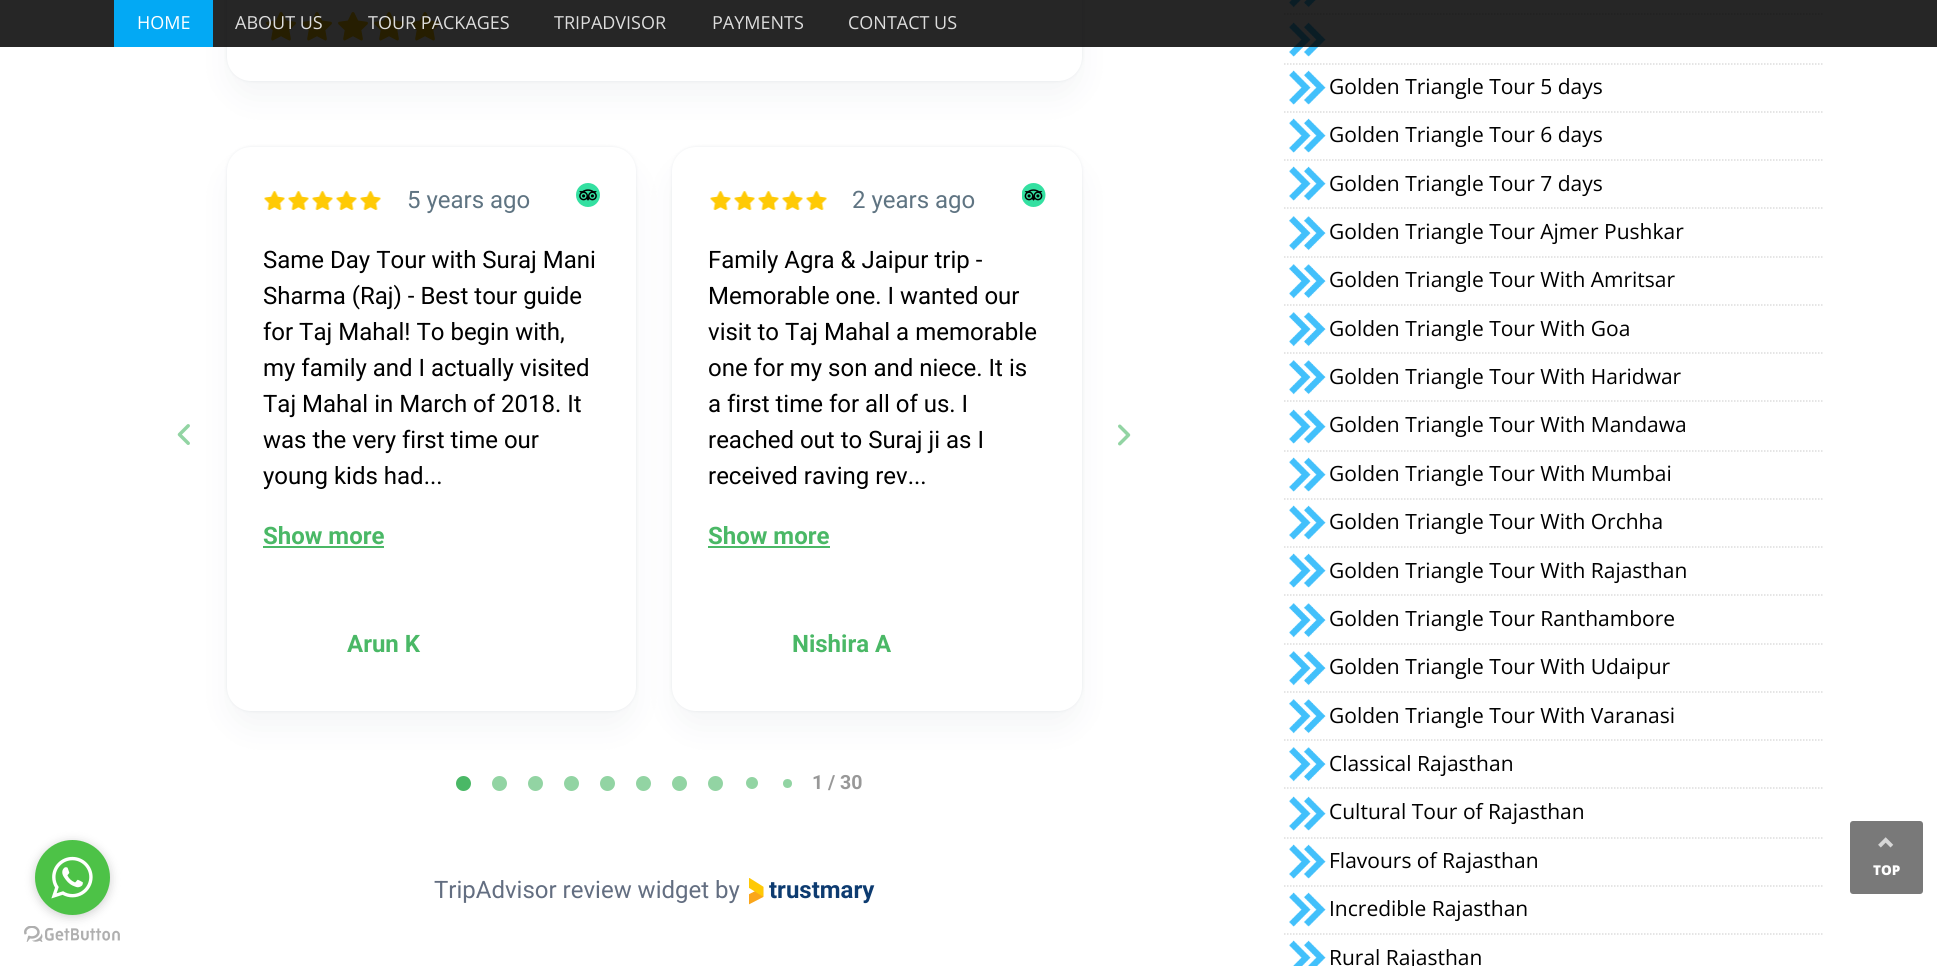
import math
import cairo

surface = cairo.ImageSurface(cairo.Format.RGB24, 1937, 966)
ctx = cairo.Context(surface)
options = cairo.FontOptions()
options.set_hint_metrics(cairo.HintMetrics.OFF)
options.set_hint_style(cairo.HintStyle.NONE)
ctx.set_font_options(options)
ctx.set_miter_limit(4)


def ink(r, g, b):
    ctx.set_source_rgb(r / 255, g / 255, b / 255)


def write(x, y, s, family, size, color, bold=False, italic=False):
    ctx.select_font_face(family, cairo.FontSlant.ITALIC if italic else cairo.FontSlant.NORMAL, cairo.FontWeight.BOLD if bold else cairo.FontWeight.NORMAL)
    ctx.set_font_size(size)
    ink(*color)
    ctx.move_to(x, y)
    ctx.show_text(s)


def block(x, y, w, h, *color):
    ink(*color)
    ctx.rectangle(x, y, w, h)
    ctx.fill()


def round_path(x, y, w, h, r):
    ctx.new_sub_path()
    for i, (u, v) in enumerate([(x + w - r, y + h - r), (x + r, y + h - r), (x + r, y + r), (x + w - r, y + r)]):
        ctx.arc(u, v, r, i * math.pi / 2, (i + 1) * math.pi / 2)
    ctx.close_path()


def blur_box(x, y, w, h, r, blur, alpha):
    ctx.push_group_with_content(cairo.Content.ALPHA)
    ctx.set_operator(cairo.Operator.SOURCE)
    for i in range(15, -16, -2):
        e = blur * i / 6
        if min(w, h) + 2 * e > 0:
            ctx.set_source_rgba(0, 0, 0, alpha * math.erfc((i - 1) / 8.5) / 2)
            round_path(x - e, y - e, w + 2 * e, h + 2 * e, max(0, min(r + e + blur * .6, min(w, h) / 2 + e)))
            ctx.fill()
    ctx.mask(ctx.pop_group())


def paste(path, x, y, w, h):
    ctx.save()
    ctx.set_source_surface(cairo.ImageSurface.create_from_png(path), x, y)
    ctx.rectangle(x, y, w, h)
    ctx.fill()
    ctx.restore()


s1 = dict(family="Open Sans", size=18, color=(255, 255, 255))
s2 = dict(family="Open Sans", size=18, color=(221, 221, 221))
s3 = dict(family="Roboto", size=24, color=(95, 116, 130))
s4 = dict(family="Roboto", size=24, color=(0, 0, 0))
s5 = dict(family="Roboto", size=24, color=(74, 184, 102), bold=True)
s6 = dict(family="Roboto", size=19.5, color=(152, 152, 152), bold=True)
s7 = dict(family="Roboto", size=24, color=(99, 110, 129))
s8 = dict(family="Roboto", size=24, color=(13, 59, 112), bold=True)
s9 = dict(family="Open Sans", size=21, color=(0, 0, 0))
s10 = dict(family="Open Sans ExtraBold", size=13.5, color=(255, 255, 255))

ink(255, 255, 255)
ctx.paint()
ink(145, 158, 171)
blur_box(227, -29, 855, 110, 24, 1.5, 0.2)
blur_box(233, -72, 843, 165, 18, 18, 0.12)
ink(255, 255, 255)
round_path(227, -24, 855, 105, 24)
ctx.fill()
paste("pic3.png", 266, 12, 174, 29)
ctx.new_path()
ctx.move_to(1284, 14)
ctx.line_to(1824, 14)
ink(220, 220, 220)
ctx.set_line_width(1.5)
ctx.set_dash([1.5, 1.5])
ctx.stroke()
paste("pic11.png", 1289, 0, 27, 8)
paste("pic12.png", 1289, 22, 37, 35)
ctx.set_source_rgba(0, 0, 0, 0.85)
ctx.rectangle(0, 0, 1937, 47)
ctx.fill()
block(114, 0, 99, 47, 3, 169, 244)
write(137, 29, "HOME", **s1)
write(235, 29, "ABOUT US", **s2)
write(368, 29, "TOUR PACKAGES", **s2)
write(554, 29, "TRIPADVISOR", **s2)
write(712, 29, "PAYMENTS", **s2)
write(848, 29, "CONTACT US", **s2)
paste("pic2.png", 24, 926, 96, 16)
ink(136, 136, 136)
blur_box(35, 842, 75, 75, 37.5, 5, 0.4)
ink(77, 194, 71)
ctx.arc(72.5, 877.5, 37.5, 0, 2 * math.pi)
ctx.fill()
paste("pic1.png", 51, 856, 42, 43)
ink(145, 158, 171)
blur_box(233, 171, 397, 552, 18, 18, 0.12)
paste("pic4.png", 177, 424, 13, 21)
blur_box(227, 147, 409, 564, 24, 1.5, 0.2)
ink(255, 255, 255)
round_path(227, 147, 409, 564, 24)
ctx.fill()
paste("pic5.png", 264, 191, 117, 19)
write(407, 208, "5 years ago", **s3)
paste("pic6.png", 576, 183, 24, 24)
write(263, 268, "Same Day Tour with Suraj Mani", **s4)
write(263, 304, "Sharma (Raj) - Best tour guide", **s4)
write(263, 340, "for Taj Mahal! To begin with,", **s4)
write(263, 376, "my family and I actually visited", **s4)
write(263, 412, "Taj Mahal in March of 2018. It", **s4)
write(263, 448, "was the very first time our", **s4)
write(263, 484, "young kids had...", **s4)
write(263, 544, "Show more", **s5)
block(263, 546, 121, 2, 74, 184, 102)
write(347, 652, "Arun K", **s5)
ink(145, 158, 171)
blur_box(672, 147, 410, 564, 24, 1.5, 0.2)
blur_box(678, 171, 398, 552, 18, 18, 0.12)
ink(255, 255, 255)
round_path(672, 147, 410, 564, 24)
ctx.fill()
paste("pic7.png", 710, 191, 117, 19)
write(852, 208, "2 years ago", **s3)
paste("pic8.png", 1022, 183, 24, 24)
write(708, 268, "Family Agra & Jaipur trip -", **s4)
write(708, 304, "Memorable one. I wanted our", **s4)
write(708, 340, "visit to Taj Mahal a memorable", **s4)
write(708, 376, "one for my son and niece. It is", **s4)
write(708, 412, "a first time for all of us. I", **s4)
write(708, 448, "reached out to Suraj ji as I", **s4)
write(708, 484, "received raving rev...", **s4)
write(708, 544, "Show more", **s5)
block(708, 546, 122, 2, 74, 184, 102)
write(792, 652, "Nishira A", **s5)
paste("pic9.png", 1118, 424, 13, 22)
ctx.arc(463.5, 783.5, 7.5, 0, 2 * math.pi)
ctx.fill()
ink(146, 212, 163)
ctx.arc(499.5, 783.5, 7.5, 0, 2 * math.pi)
ctx.fill()
ctx.arc(535.5, 783.5, 7.5, 0, 2 * math.pi)
ctx.fill()
ctx.arc(571.5, 783.5, 7.5, 0, 2 * math.pi)
ctx.fill()
ctx.arc(607.5, 783.5, 7.5, 0, 2 * math.pi)
ctx.fill()
ctx.arc(643.5, 783.5, 7.5, 0, 2 * math.pi)
ctx.fill()
ctx.arc(679.5, 783.5, 7.5, 0, 2 * math.pi)
ctx.fill()
ctx.arc(715.5, 783.5, 7.5, 0, 2 * math.pi)
ctx.fill()
ctx.arc(752, 783, 6, 0, 2 * math.pi)
ctx.fill()
ctx.arc(787.5, 783.5, 4.5, 0, 2 * math.pi)
ctx.fill()
write(812, 789, "1 / 30", **s6)
write(434, 898, "TripAdvisor review widget by", **s7)
paste("pic10.png", 749, 878, 15, 27)
write(769, 898, "trustmary", **s8)
ctx.new_path()
ctx.move_to(1284, 64)
ctx.line_to(1824, 64)
ink(220, 220, 220)
ctx.stroke()
ctx.new_path()
ctx.move_to(1284, 112)
ctx.line_to(1824, 112)
ctx.stroke()
paste("pic12.png", 1289, 70, 37, 35)
write(1329, 94, "Golden Triangle Tour 5 days", **s9)
ctx.new_path()
ctx.move_to(1284, 160)
ctx.line_to(1824, 160)
ink(220, 220, 220)
ctx.stroke()
paste("pic12.png", 1289, 118, 37, 35)
write(1329, 142, "Golden Triangle Tour 6 days", **s9)
ctx.new_path()
ctx.move_to(1284, 208)
ctx.line_to(1824, 208)
ink(220, 220, 220)
ctx.stroke()
paste("pic12.png", 1289, 166, 37, 35)
write(1329, 191, "Golden Triangle Tour 7 days", **s9)
ctx.new_path()
ctx.move_to(1284, 257)
ctx.line_to(1824, 257)
ink(220, 220, 220)
ctx.stroke()
paste("pic13.png", 1289, 216, 37, 35)
write(1329, 239, "Golden Triangle Tour Ajmer Pushkar", **s9)
ctx.new_path()
ctx.move_to(1284, 305)
ctx.line_to(1824, 305)
ink(220, 220, 220)
ctx.stroke()
paste("pic13.png", 1289, 264, 37, 35)
write(1329, 287, "Golden Triangle Tour With Amritsar", **s9)
ctx.new_path()
ctx.move_to(1284, 353)
ctx.line_to(1824, 353)
ink(220, 220, 220)
ctx.stroke()
paste("pic13.png", 1289, 312, 37, 35)
write(1329, 336, "Golden Triangle Tour With Goa", **s9)
ctx.new_path()
ctx.move_to(1284, 401)
ctx.line_to(1824, 401)
ink(220, 220, 220)
ctx.stroke()
paste("pic13.png", 1289, 360, 37, 35)
write(1329, 384, "Golden Triangle Tour With Haridwar", **s9)
ctx.new_path()
ctx.move_to(1284, 451)
ctx.line_to(1824, 451)
ink(220, 220, 220)
ctx.stroke()
paste("pic12.png", 1289, 409, 37, 35)
write(1329, 432, "Golden Triangle Tour With Mandawa", **s9)
ctx.new_path()
ctx.move_to(1284, 499)
ctx.line_to(1824, 499)
ink(220, 220, 220)
ctx.stroke()
paste("pic12.png", 1289, 457, 37, 35)
write(1329, 481, "Golden Triangle Tour With Mumbai", **s9)
ctx.new_path()
ctx.move_to(1284, 547)
ctx.line_to(1824, 547)
ink(220, 220, 220)
ctx.stroke()
paste("pic12.png", 1289, 505, 37, 35)
write(1329, 529, "Golden Triangle Tour With Orchha", **s9)
ctx.new_path()
ctx.move_to(1284, 595)
ctx.line_to(1824, 595)
ink(220, 220, 220)
ctx.stroke()
paste("pic12.png", 1289, 553, 37, 35)
write(1329, 578, "Golden Triangle Tour With Rajasthan", **s9)
ctx.new_path()
ctx.move_to(1284, 644)
ctx.line_to(1824, 644)
ink(220, 220, 220)
ctx.stroke()
paste("pic13.png", 1289, 603, 37, 35)
write(1329, 626, "Golden Triangle Tour Ranthambore", **s9)
ctx.new_path()
ctx.move_to(1284, 692)
ctx.line_to(1824, 692)
ink(220, 220, 220)
ctx.stroke()
paste("pic13.png", 1289, 651, 37, 35)
write(1329, 674, "Golden Triangle Tour With Udaipur", **s9)
ctx.new_path()
ctx.move_to(1284, 740)
ctx.line_to(1824, 740)
ink(220, 220, 220)
ctx.stroke()
paste("pic13.png", 1289, 699, 37, 35)
write(1329, 723, "Golden Triangle Tour With Varanasi", **s9)
ctx.new_path()
ctx.move_to(1284, 788)
ctx.line_to(1824, 788)
ink(220, 220, 220)
ctx.stroke()
paste("pic13.png", 1289, 747, 37, 35)
write(1329, 771, "Classical Rajasthan", **s9)
ctx.new_path()
ctx.move_to(1284, 838)
ctx.line_to(1824, 838)
ink(220, 220, 220)
ctx.stroke()
paste("pic12.png", 1289, 796, 37, 35)
write(1329, 819, "Cultural Tour of Rajasthan", **s9)
ctx.new_path()
ctx.move_to(1284, 886)
ctx.line_to(1824, 886)
ink(220, 220, 220)
ctx.stroke()
paste("pic12.png", 1289, 844, 37, 35)
write(1329, 868, "Flavours of Rajasthan", **s9)
ctx.new_path()
ctx.move_to(1284, 934)
ctx.line_to(1824, 934)
ink(220, 220, 220)
ctx.stroke()
paste("pic12.png", 1289, 892, 37, 35)
write(1329, 916, "Incredible Rajasthan", **s9)
paste("pic14.png", 1289, 940, 37, 26)
write(1329, 965, "Rural Rajasthan", **s9)
ink(121, 121, 121)
round_path(1850, 821, 73, 73, 3)
ctx.fill()
paste("pic15.png", 1878, 837, 16, 11)
write(1873, 875, "TOP", **s10)
surface.write_to_png("screenshot.png")
